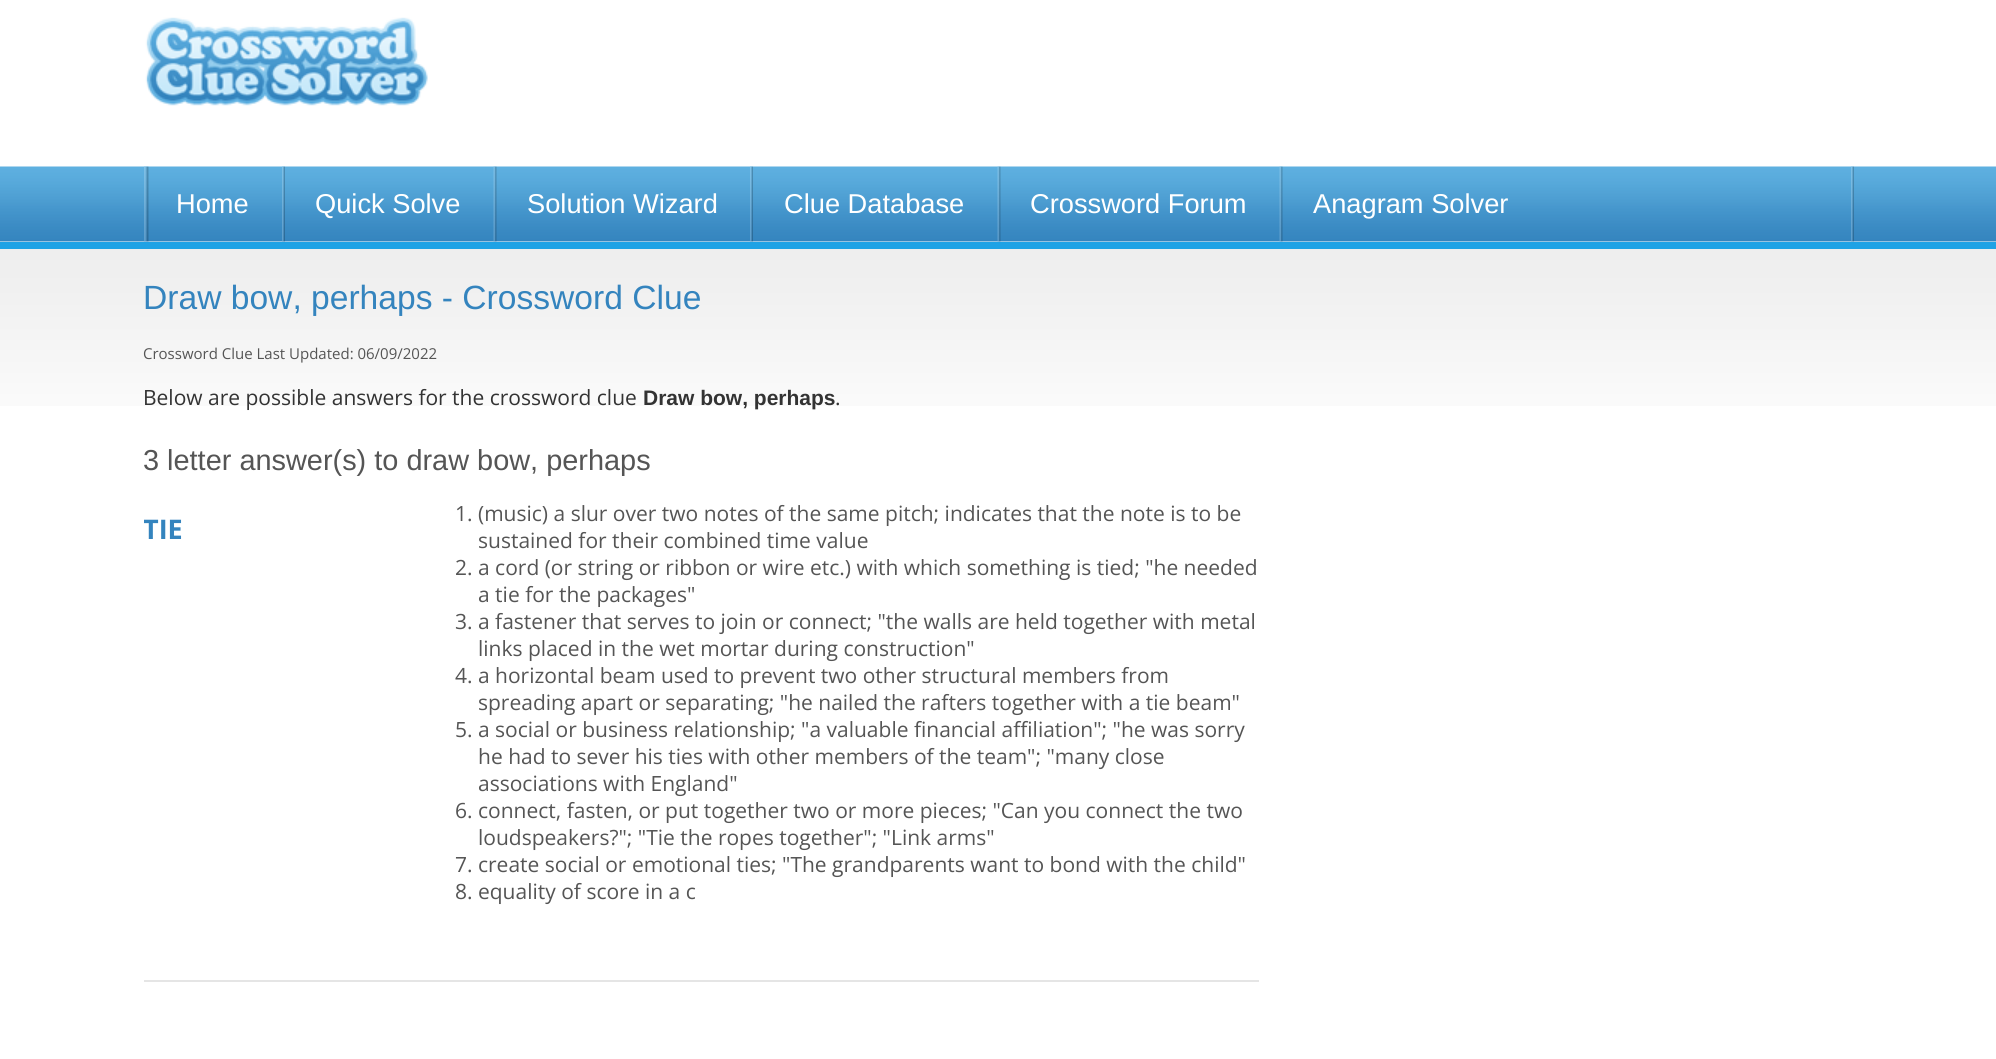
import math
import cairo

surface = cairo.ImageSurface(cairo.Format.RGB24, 1996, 1059)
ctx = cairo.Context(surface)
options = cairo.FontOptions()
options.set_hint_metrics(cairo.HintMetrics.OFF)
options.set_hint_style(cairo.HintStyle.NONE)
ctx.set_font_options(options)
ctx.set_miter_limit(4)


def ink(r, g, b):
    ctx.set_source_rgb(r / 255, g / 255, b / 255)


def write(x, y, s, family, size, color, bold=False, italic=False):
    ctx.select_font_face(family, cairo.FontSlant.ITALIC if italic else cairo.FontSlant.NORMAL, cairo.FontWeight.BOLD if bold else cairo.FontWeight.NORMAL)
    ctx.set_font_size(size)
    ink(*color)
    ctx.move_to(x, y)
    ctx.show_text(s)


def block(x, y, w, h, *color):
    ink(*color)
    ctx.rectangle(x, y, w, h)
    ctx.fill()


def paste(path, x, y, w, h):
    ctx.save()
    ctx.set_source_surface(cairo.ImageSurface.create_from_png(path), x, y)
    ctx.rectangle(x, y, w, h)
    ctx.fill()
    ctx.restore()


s1 = dict(family="Liberation Sans", size=27.25, color=(255, 255, 255))
s2 = dict(family="Liberation Sans", size=33.6, color=(52, 132, 190))
s3 = dict(family="Open Sans", size=15, color=(85, 85, 85))
s4 = dict(family="Open Sans", size=21, color=(51, 51, 51))
s5 = dict(family="Liberation Sans", size=21, color=(51, 51, 51), bold=True)
s6 = dict(family="Liberation Sans", size=28.9, color=(85, 85, 85))
s7 = dict(family="Open Sans", size=27, color=(52, 132, 190), bold=True)
s8 = dict(family="Open Sans", size=21, color=(85, 85, 85))

ink(255, 255, 255)
ctx.paint()
paste("pic1.png", 145, 17, 283, 89)
paste("pic2.png", 0, 166, 1996, 76)
paste("pic3.png", 1851, 166, 3, 76)
paste("pic4.png", 144, 166, 5, 76)
write(176, 213, "Home", **s1)
paste("pic3.png", 282, 166, 3, 76)
write(315, 213, "Quick Solve", **s1)
paste("pic5.png", 493, 166, 4, 76)
write(527, 213, "Solution Wizard", **s1)
paste("pic3.png", 750, 166, 3, 76)
write(784, 213, "Clue Database", **s1)
paste("pic5.png", 997, 166, 4, 76)
write(1030, 213, "Crossword Forum", **s1)
paste("pic5.png", 1279, 166, 4, 76)
write(1313, 213, "Anagram Solver", **s1)
gradient = cairo.LinearGradient(998, 242, 998, 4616)
gradient.add_color_stop_rgba(0, 0.122, 0.635, 0.898, 1)
gradient.add_color_stop_rgba(1, 0.098, 0.522, 0.737, 1)
ctx.set_source(gradient)
ctx.rectangle(0, 242, 1996, 7)
ctx.fill()
paste("pic6.png", 0, 249, 1996, 157)
write(143, 309, "Draw bow, perhaps - Crossword Clue", **s2)
write(143, 359, "Crossword Clue Last Updated: 06/09/2022", **s3)
write(143, 405, "Below are possible answers for the crossword clue", **s4)
write(643, 405, "Draw bow, perhaps", **s5)
write(835, 405, ".", **s4)
write(143, 470, "3 letter answer(s) to draw bow, perhaps", **s6)
ctx.save()
ctx.rectangle(144, 500, 1115, 405)
ctx.clip()
write(143, 539, "TIE", **s7)
ctx.restore()
write(455, 521, "1. (music) a slur over two notes of the same pitch; indicates that the note is to be", **s8)
write(478, 548, "sustained for their combined time value", **s8)
write(455, 575, "2. a cord (or string or ribbon or wire etc.) with which something is tied; \"he needed", **s8)
write(478, 602, "a tie for the packages\"", **s8)
write(455, 629, "3. a fastener that serves to join or connect; \"the walls are held together with metal", **s8)
write(478, 656, "links placed in the wet mortar during construction\"", **s8)
write(455, 683, "4. a horizontal beam used to prevent two other structural members from", **s8)
write(478, 710, "spreading apart or separating; \"he nailed the rafters together with a tie beam\"", **s8)
write(455, 737, "5. a social or business relationship; \"a valuable financial affiliation\"; \"he was sorry", **s8)
write(478, 764, "he had to sever his ties with other members of the team\"; \"many close", **s8)
write(478, 791, "associations with England\"", **s8)
write(455, 818, "6. connect, fasten, or put together two or more pieces; \"Can you connect the two", **s8)
write(478, 845, "loudspeakers?\"; \"Tie the ropes together\"; \"Link arms\"", **s8)
write(455, 872, "7. create social or emotional ties; \"The grandparents want to bond with the child\"", **s8)
write(455, 899, "8. equality of score in a c", **s8)
block(144, 980, 1115, 2, 229, 229, 229)
surface.write_to_png("screenshot.png")
